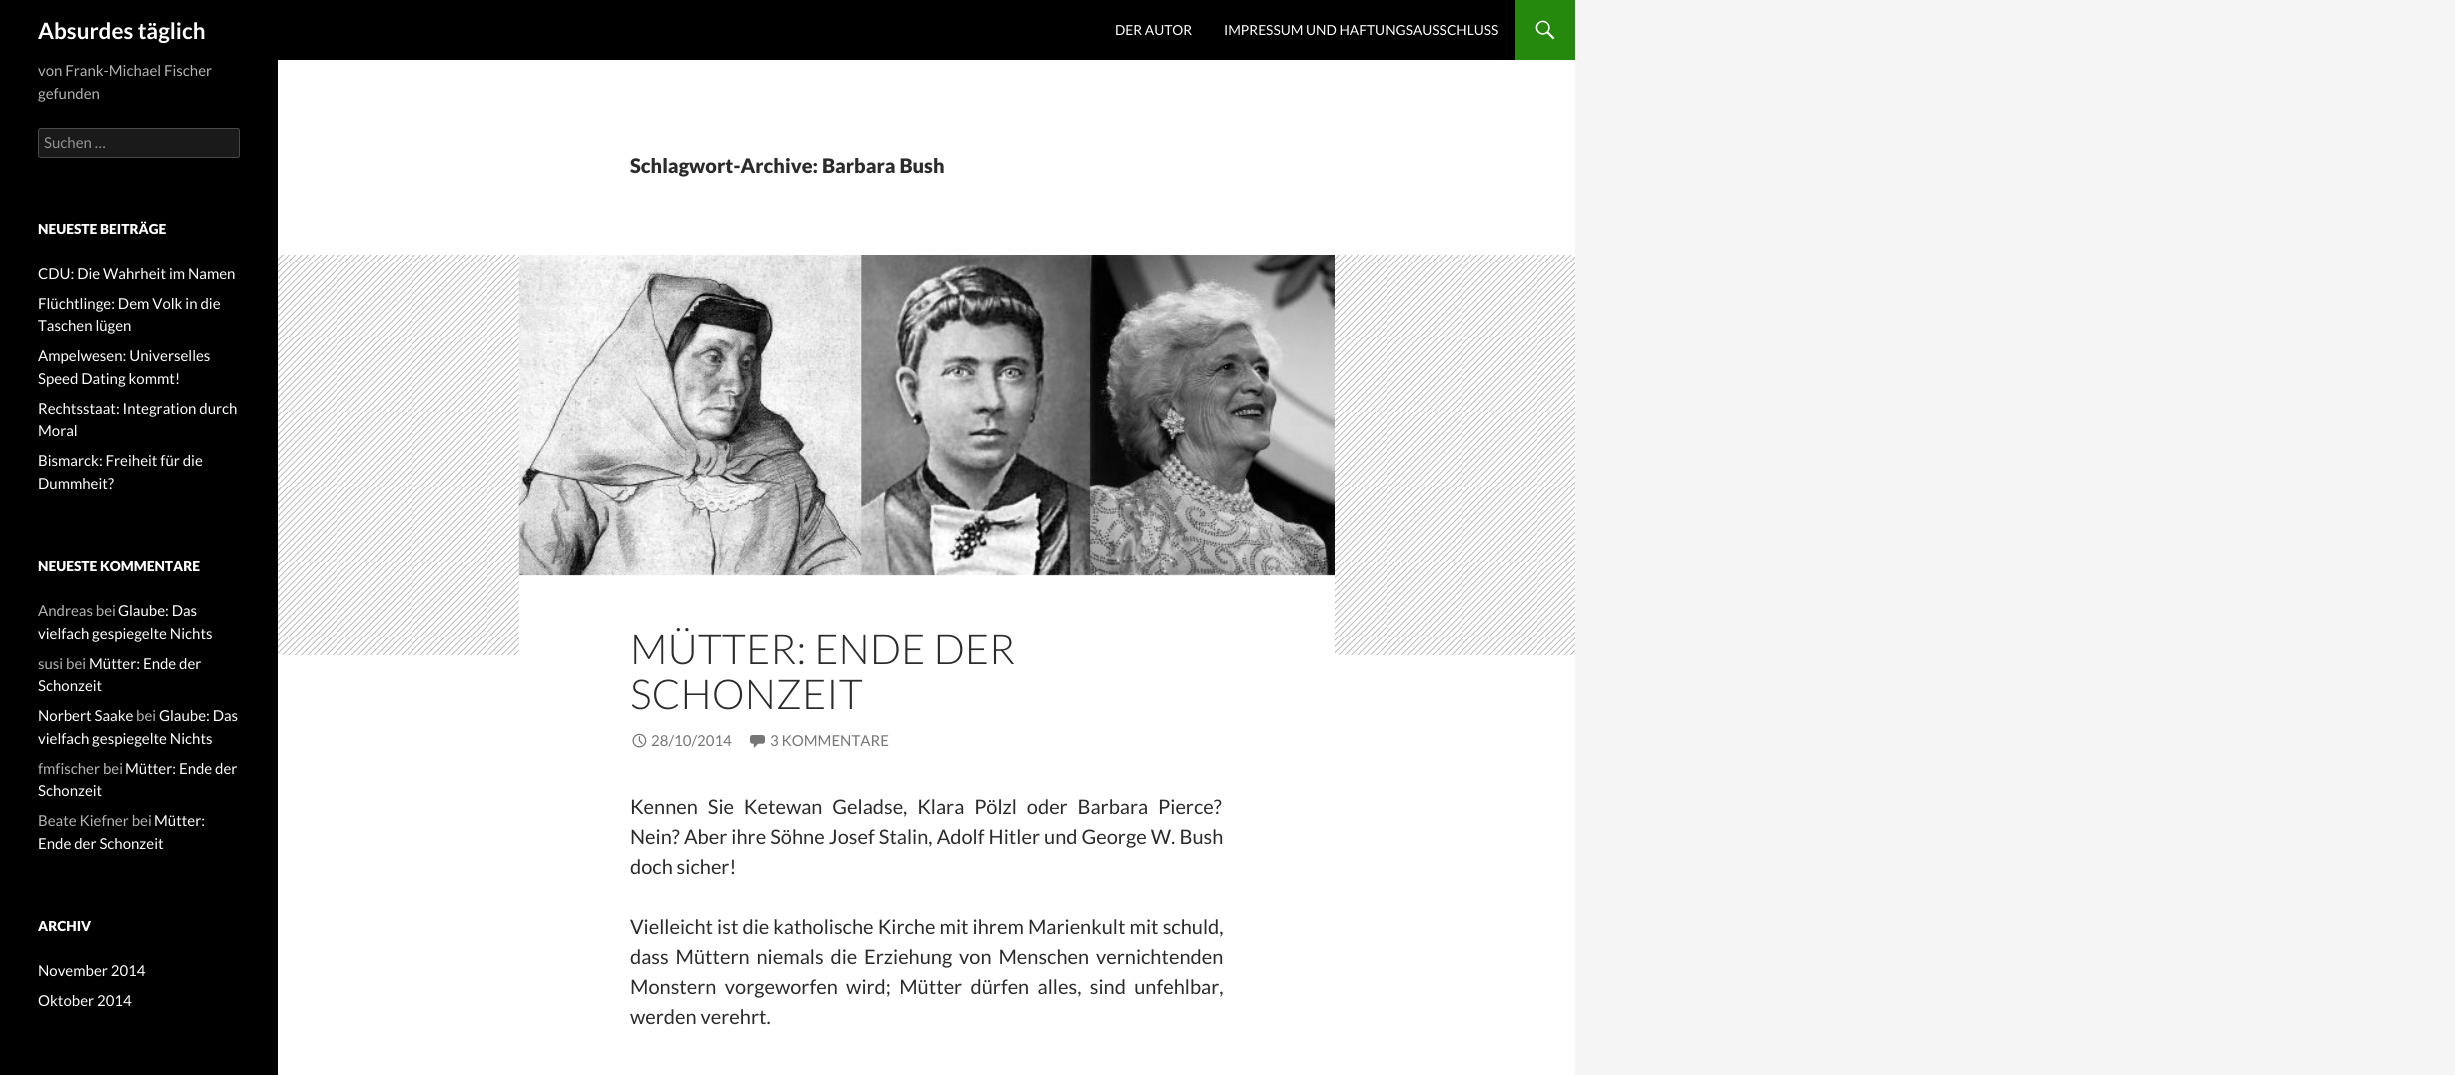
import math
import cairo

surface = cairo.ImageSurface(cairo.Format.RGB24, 2455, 1075)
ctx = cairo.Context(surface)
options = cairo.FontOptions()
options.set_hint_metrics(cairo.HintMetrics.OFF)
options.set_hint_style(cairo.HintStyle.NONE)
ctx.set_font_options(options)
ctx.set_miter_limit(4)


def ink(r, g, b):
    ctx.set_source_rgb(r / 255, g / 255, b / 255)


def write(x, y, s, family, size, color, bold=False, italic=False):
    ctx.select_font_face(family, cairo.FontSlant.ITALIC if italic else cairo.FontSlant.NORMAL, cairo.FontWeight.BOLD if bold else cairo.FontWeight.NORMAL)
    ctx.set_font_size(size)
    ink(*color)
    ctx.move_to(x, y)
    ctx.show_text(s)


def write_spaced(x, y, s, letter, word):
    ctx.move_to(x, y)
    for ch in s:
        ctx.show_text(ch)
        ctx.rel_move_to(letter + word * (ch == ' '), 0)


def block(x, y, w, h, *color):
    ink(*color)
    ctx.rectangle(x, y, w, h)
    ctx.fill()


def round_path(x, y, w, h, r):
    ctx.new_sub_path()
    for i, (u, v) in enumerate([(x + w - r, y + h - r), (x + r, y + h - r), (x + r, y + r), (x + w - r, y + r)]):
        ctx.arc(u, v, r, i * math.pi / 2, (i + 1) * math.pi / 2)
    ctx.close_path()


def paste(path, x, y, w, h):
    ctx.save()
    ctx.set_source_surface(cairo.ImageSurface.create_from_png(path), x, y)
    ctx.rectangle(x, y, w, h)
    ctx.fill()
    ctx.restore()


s1 = dict(family="Lato", size=22.5, color=(255, 255, 255), bold=True)
s2 = dict(family="Lato", size=13.75, color=(255, 255, 255))
s3 = dict(family="Lato", size=15, color=(179, 179, 179))
s4 = dict(family="Lato", size=15, color=(147, 147, 147))
s5 = dict(family="Lato Black", size=13.75, color=(255, 255, 255))
s6 = dict(family="Lato", size=15, color=(255, 255, 255))
s7 = dict(family="Lato Black", size=20, color=(43, 43, 43))
s8 = dict(family="Lato Light", size=41.25, color=(43, 43, 43))
s9 = dict(family="Lato", size=15, color=(118, 118, 118))
s10 = dict(family="Lato", size=20, color=(43, 43, 43))

ink(245, 245, 245)
ctx.paint()
block(278, 60, 1297, 1015, 255, 255, 255)
block(0, 0, 1515, 60, 0, 0, 0)
write(38, 39, "Absurdes täglich", **s1)
write(1115, 35, "DER AUTOR", **s2)
write(1224, 35, "IMPRESSUM UND HAFTUNGSAUSSCHLUSS", **s2)
block(1515, 0, 60, 60, 36, 137, 13)
paste("pic1.png", 1535, 20, 20, 20)
block(0, 60, 278, 1015, 0, 0, 0)
write(38, 76, "von Frank-Michael Fischer", **s3)
write(38, 99, "gefunden", **s3)
ink(26, 26, 26)
round_path(38, 128, 202, 30, 2.5)
ctx.fill()
round_path(38.5, 128.5, 201, 29, 2)
ctx.set_source_rgba(1, 1, 1, 0.2)
ctx.set_line_width(1)
ctx.stroke()
write(44, 148, "Suchen …", **s4)
write(38, 234, "NEUESTE BEITRÄGE", **s5)
write(38, 279, "CDU: Die Wahrheit im Namen", **s6)
write(38, 309, "Flüchtlinge: Dem Volk in die", **s6)
write(38, 331, "Taschen lügen", **s6)
write(38, 361, "Ampelwesen: Universelles", **s6)
write(38, 384, "Speed Dating kommt!", **s6)
write(38, 414, "Rechtsstaat: Integration durch", **s6)
write(38, 436, "Moral", **s6)
write(38, 466, "Bismarck: Freiheit für die", **s6)
write(38, 489, "Dummheit?", **s6)
write(38, 571, "NEUESTE KOMMENTARE", **s5)
write(38, 616, "Andreas bei", **s3)
write(118, 616, "Glaube: Das", **s6)
write(38, 639, "vielfach gespiegelte Nichts", **s6)
write(38, 669, "susi bei", **s3)
write(89, 669, "Mütter: Ende der", **s6)
write(38, 691, "Schonzeit", **s6)
write(38, 721, "Norbert Saake", **s6)
write(136, 721, "bei", **s3)
write(159, 721, "Glaube: Das", **s6)
write(38, 744, "vielfach gespiegelte Nichts", **s6)
write(38, 774, "fmfischer bei", **s3)
write(125, 774, "Mütter: Ende der", **s6)
write(38, 796, "Schonzeit", **s6)
write(38, 826, "Beate Kiefner bei", **s3)
write(154, 826, "Mütter:", **s6)
write(38, 849, "Ende der Schonzeit", **s6)
write(38, 931, "ARCHIV", **s5)
write(38, 976, "November 2014", **s6)
write(38, 1006, "Oktober 2014", **s6)
write(630, 173, "Schlagwort-Archive: Barbara Bush", **s7)
block(278, 255, 1297, 400, 178, 178, 178)
paste("pic2.png", 278, 255, 1297, 400)
paste("pic3.png", 518, 255, 817, 400)
write(630, 664, "MÜTTER: ENDE DER", **s8)
write(630, 709, "SCHONZEIT", **s8)
paste("pic4.png", 632, 733, 15, 15)
write(651, 746, "28/10/2014", **s9)
paste("pic5.png", 750, 735, 15, 13)
write(770, 746, "3 KOMMENTARE", **s9)
ctx.set_font_size(20)
ink(43, 43, 43)
write_spaced(630, 814, "Kennen Sie Ketewan Geladse, Klara Pölzl oder Barbara Pierce?", 0, 6)
write_spaced(630, 844, "Nein? Aber ihre Söhne Josef Stalin, Adolf Hitler und George W. Bush", 0, 0.25)
write(630, 874, "doch sicher!", **s10)
write_spaced(630, 934, "Vielleicht ist die katholische Kirche mit ihrem Marienkult mit schuld,", 0, 0.25)
write_spaced(630, 964, "dass Müttern niemals die Erziehung von Menschen vernichtenden", 0, 3)
write_spaced(630, 994, "Monstern vorgeworfen wird; Mütter dürfen alles, sind unfehlbar,", 0, 4.5)
write(630, 1024, "werden verehrt.", **s10)
surface.write_to_png("screenshot.png")
